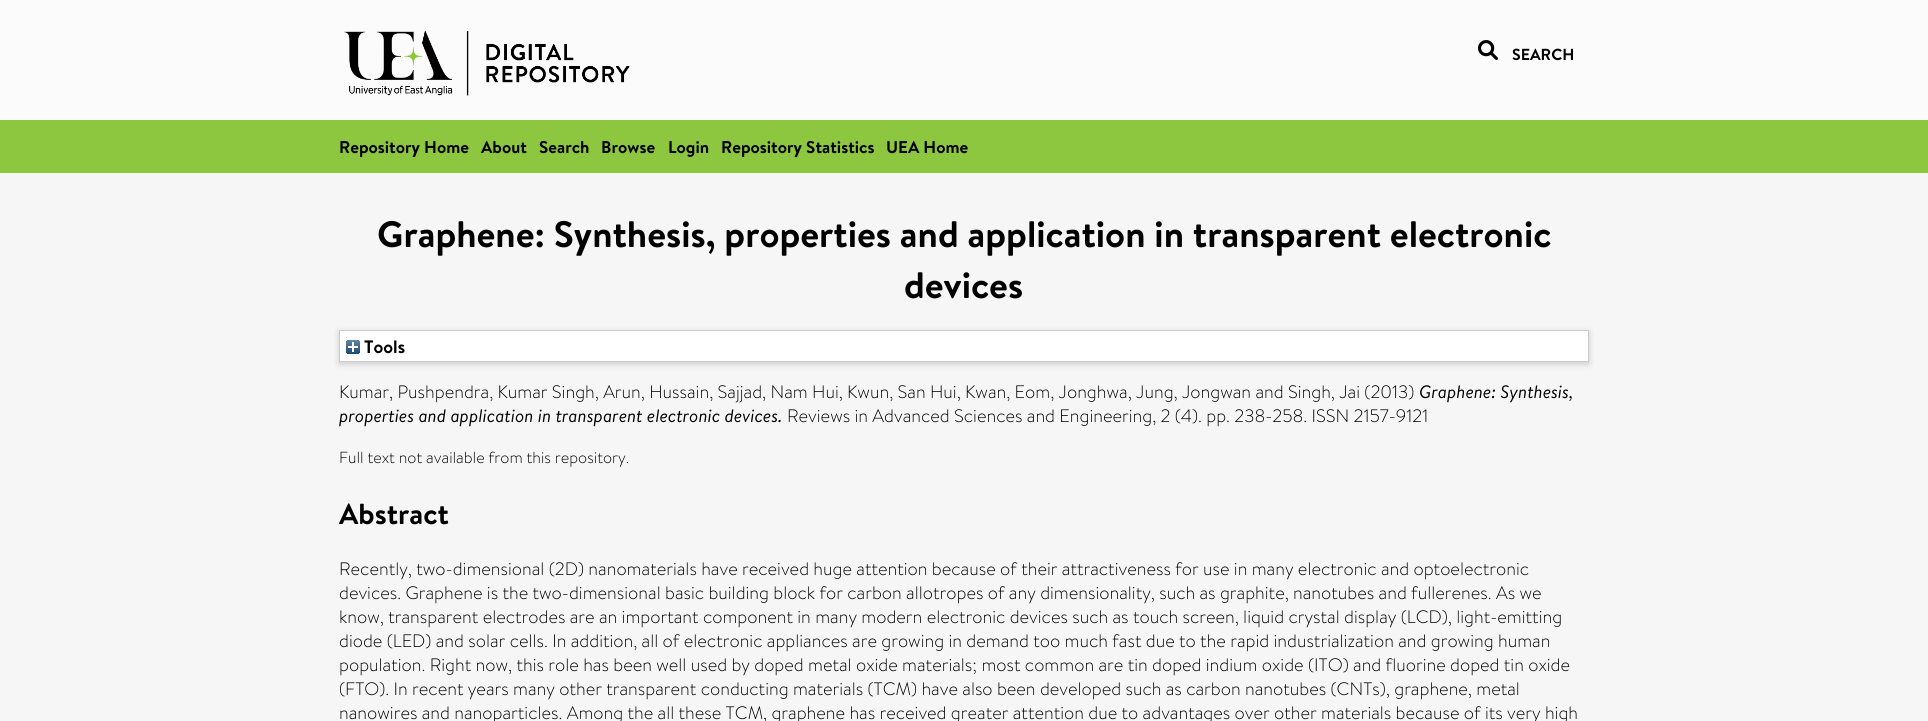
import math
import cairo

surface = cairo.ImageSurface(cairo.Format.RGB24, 1928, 721)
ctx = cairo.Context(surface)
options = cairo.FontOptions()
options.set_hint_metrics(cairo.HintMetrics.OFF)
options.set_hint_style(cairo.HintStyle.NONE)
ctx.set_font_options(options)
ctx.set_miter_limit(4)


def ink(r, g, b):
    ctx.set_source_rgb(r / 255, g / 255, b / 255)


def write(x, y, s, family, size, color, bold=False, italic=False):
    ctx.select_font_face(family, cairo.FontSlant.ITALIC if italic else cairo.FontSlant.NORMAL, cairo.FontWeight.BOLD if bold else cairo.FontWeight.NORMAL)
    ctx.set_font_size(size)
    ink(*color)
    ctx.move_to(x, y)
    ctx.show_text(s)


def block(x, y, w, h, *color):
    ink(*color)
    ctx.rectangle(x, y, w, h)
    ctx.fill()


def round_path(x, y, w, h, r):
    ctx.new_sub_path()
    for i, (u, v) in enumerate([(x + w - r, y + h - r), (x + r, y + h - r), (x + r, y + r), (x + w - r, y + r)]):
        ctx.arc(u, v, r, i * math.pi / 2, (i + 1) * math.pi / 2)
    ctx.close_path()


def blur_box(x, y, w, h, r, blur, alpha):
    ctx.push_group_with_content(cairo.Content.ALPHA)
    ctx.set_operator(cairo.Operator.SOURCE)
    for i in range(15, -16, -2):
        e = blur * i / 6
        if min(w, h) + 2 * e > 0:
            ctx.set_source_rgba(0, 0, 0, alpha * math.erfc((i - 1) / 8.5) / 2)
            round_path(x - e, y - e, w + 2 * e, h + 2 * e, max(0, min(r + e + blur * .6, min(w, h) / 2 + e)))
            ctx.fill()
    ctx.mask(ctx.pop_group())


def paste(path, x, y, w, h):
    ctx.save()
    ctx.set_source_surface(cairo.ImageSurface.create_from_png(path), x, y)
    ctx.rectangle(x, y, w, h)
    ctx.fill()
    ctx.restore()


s1 = dict(family="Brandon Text", size=16, color=(0, 0, 0), bold=True)
s2 = dict(family="Brandon Text", size=17, color=(0, 0, 0), bold=True)
s3 = dict(family="Brandon Text", size=36.8, color=(0, 0, 0), bold=True)
s4 = dict(family="Brandon Text", size=18, color=(0, 0, 0), bold=True)
s5 = dict(family="Brandon Text Light", size=18, color=(0, 0, 0))
s6 = dict(family="Brandon Text", size=18, color=(0, 0, 0), italic=True)
s7 = dict(family="Brandon Text Light", size=16, color=(0, 0, 0))
s8 = dict(family="Brandon Text", size=29, color=(0, 0, 0), bold=True)

ink(246, 246, 246)
ctx.paint()
block(0, 0, 1928, 120, 251, 251, 251)
paste("pic1.png", 344, 30, 286, 66)
paste("pic2.png", 1478, 40, 20, 20)
write(1512, 60, "SEARCH", **s1)
block(0, 120, 1928, 53, 141, 198, 63)
write(339, 153, "Repository Home", **s2)
write(481, 153, "About", **s2)
write(539, 153, "Search", **s2)
write(601, 153, "Browse", **s2)
write(668, 153, "Login", **s2)
write(721, 153, "Repository Statistics", **s2)
write(886, 153, "UEA Home", **s2)
write(377, 247, "Graphene: Synthesis, properties and application in transparent electronic", **s3)
write(904, 298, "devices", **s3)
ink(100, 100, 100)
blur_box(339, 332, 1250, 32, 0, 3, 0.3)
ink(255, 255, 255)
ctx.rectangle(339.5, 330.5, 1249, 31)
ctx.fill_preserve()
ink(204, 204, 204)
ctx.set_line_width(1)
ctx.stroke()
paste("pic3.png", 346, 340, 14, 14)
write(364, 353, "Tools", **s4)
write(339, 398, "Kumar, Pushpendra, Kumar Singh, Arun, Hussain, Sajjad, Nam Hui, Kwun, San Hui, Kwan, Eom, Jonghwa, Jung, Jongwan and Singh, Jai (2013)", **s5)
write(1419, 398, "Graphene: Synthesis,", **s6)
write(339, 422, "properties and application in transparent electronic devices.", **s6)
write(787, 422, "Reviews in Advanced Sciences and Engineering, 2 (4). pp. 238-258. ISSN 2157-9121", **s5)
write(339, 463, "Full text not available from this repository.", **s7)
write(339, 524, "Abstract", **s8)
write(339, 575, "Recently, two-dimensional (2D) nanomaterials have received huge attention because of their attractiveness for use in many electronic and optoelectronic", **s5)
write(339, 599, "devices. Graphene is the two-dimensional basic building block for carbon allotropes of any dimensionality, such as graphite, nanotubes and fullerenes. As we", **s5)
write(339, 623, "know, transparent electrodes are an important component in many modern electronic devices such as touch screen, liquid crystal display (LCD), light-emitting", **s5)
write(339, 647, "diode (LED) and solar cells. In addition, all of electronic appliances are growing in demand too much fast due to the rapid industrialization and growing human", **s5)
write(339, 671, "population. Right now, this role has been well used by doped metal oxide materials; most common are tin doped indium oxide (ITO) and fluorine doped tin oxide", **s5)
write(339, 695, "(FTO). In recent years many other transparent conducting materials (TCM) have also been developed such as carbon nanotubes (CNTs), graphene, metal", **s5)
write(339, 719, "nanowires and nanoparticles. Among the all these TCM, graphene has received greater attention due to advantages over other materials because of its very high", **s5)
surface.write_to_png("screenshot.png")
